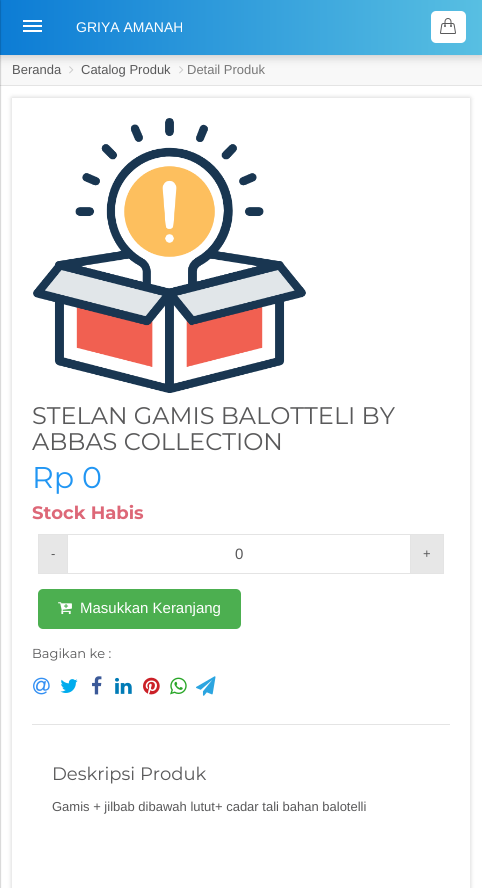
import math
import cairo

surface = cairo.ImageSurface(cairo.Format.RGB24, 482, 888)
ctx = cairo.Context(surface)
options = cairo.FontOptions()
options.set_hint_metrics(cairo.HintMetrics.OFF)
options.set_hint_style(cairo.HintStyle.NONE)
ctx.set_font_options(options)
ctx.set_miter_limit(4)


def ink(r, g, b):
    ctx.set_source_rgb(r / 255, g / 255, b / 255)


def write(x, y, s, family, size, color, bold=False, italic=False):
    ctx.select_font_face(family, cairo.FontSlant.ITALIC if italic else cairo.FontSlant.NORMAL, cairo.FontWeight.BOLD if bold else cairo.FontWeight.NORMAL)
    ctx.set_font_size(size)
    ink(*color)
    ctx.move_to(x, y)
    ctx.show_text(s)


def block(x, y, w, h, *color):
    ink(*color)
    ctx.rectangle(x, y, w, h)
    ctx.fill()


def round_path(x, y, w, h, r):
    ctx.new_sub_path()
    for i, (u, v) in enumerate([(x + w - r, y + h - r), (x + r, y + h - r), (x + r, y + r), (x + w - r, y + r)]):
        ctx.arc(u, v, r, i * math.pi / 2, (i + 1) * math.pi / 2)
    ctx.close_path()


def blur_box(x, y, w, h, r, blur, alpha):
    ctx.push_group_with_content(cairo.Content.ALPHA)
    ctx.set_operator(cairo.Operator.SOURCE)
    for i in range(15, -16, -2):
        e = blur * i / 6
        if min(w, h) + 2 * e > 0:
            ctx.set_source_rgba(0, 0, 0, alpha * math.erfc((i - 1) / 8.5) / 2)
            round_path(x - e, y - e, w + 2 * e, h + 2 * e, max(0, min(r + e + blur * .6, min(w, h) / 2 + e)))
            ctx.fill()
    ctx.mask(ctx.pop_group())


def paste(path, x, y, w, h):
    ctx.save()
    ctx.set_source_surface(cairo.ImageSurface.create_from_png(path), x, y)
    ctx.rectangle(x, y, w, h)
    ctx.fill()
    ctx.restore()


s1 = dict(family="Liberation Sans", size=14, color=(255, 255, 255))
s2 = dict(family="Liberation Sans", size=13, color=(89, 89, 90))
s3 = dict(family="Liberation Sans", size=13, color=(119, 119, 119))
s4 = dict(family="Montserrat", size=24, color=(89, 89, 90))
s5 = dict(family="Montserrat", size=30, color=(33, 150, 243))
s6 = dict(family="Montserrat", size=18, color=(221, 103, 119), bold=True)
s7 = dict(family="Liberation Sans", size=15, color=(89, 89, 90))
s8 = dict(family="Liberation Sans", size=15, color=(255, 255, 255))
s9 = dict(family="Montserrat", size=13, color=(89, 89, 90))
s10 = dict(family="Montserrat", size=18, color=(89, 89, 90))

ink(255, 255, 255)
ctx.paint()
block(0, 55, 482, 30, 248, 248, 248)
paste("pic2.png", 69, 66, 5, 8)
paste("pic2.png", 179, 66, 5, 8)
ink(0, 0, 0)
blur_box(0, 2, 482, 55, 0, 5, 0.2)
gradient = cairo.LinearGradient(0, 28, 482, 27)
gradient.add_color_stop_rgba(0, 0.047, 0.486, 0.835, 1)
gradient.add_color_stop_rgba(1, 0.345, 0.749, 0.886, 1)
ctx.set_source(gradient)
ctx.rectangle(0, 0, 482, 55)
ctx.fill()
block(0, 85, 482, 1, 228, 228, 228)
ink(0, 0, 0)
blur_box(-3, 1, 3, 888, 0, 1, 0.25)
ctx.rectangle(-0.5, -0.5, 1, 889)
ctx.set_source_rgba(0, 0, 0, 0.07)
ctx.set_line_width(1)
ctx.stroke()
block(23, 20, 19, 2, 255, 255, 255)
block(23, 25, 19, 2, 255, 255, 255)
block(23, 30, 19, 2, 255, 255, 255)
write(76, 32, "GRIYA AMANAH", **s1)
round_path(431, 11, 35, 32, 5)
ctx.fill()
paste("pic1.png", 440, 18, 16, 16)
write(12, 74, "Beranda", **s2)
write(81, 74, "Catalog Produk", **s2)
write(187, 74, "Detail Produk", **s3)
ctx.save()
ctx.set_fill_rule(cairo.FillRule.EVEN_ODD)
ctx.new_path()
ctx.move_to(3, 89)
ctx.line_to(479, 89)
ctx.line_to(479, 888)
ctx.line_to(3, 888)
ctx.close_path()
ctx.move_to(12, 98)
ctx.line_to(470, 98)
ctx.line_to(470, 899)
ctx.line_to(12, 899)
ctx.close_path()
ctx.clip()
ink(0, 0, 0)
blur_box(12, 98, 458, 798, 0, 2.5, 0.2)
ctx.restore()
paste("pic3.png", 33, 118, 273, 275)
write(32, 424, "STELAN GAMIS BALOTTELI BY", **s4)
write(32, 450, "ABBAS COLLECTION", **s4)
write(32, 488, "Rp 0", **s5)
write(32, 519, "Stock Habis", **s6)
block(39, 535, 28, 38, 231, 231, 231)
block(38, 534, 29, 1, 228, 228, 228)
block(38, 573, 29, 1, 228, 228, 228)
block(38, 534, 1, 40, 228, 228, 228)
write(51, 558, "-", **s2)
ctx.rectangle(67.5, 534.5, 343, 39)
ink(228, 228, 228)
ctx.stroke()
write(235, 559, "0", **s7)
block(411, 535, 32, 38, 231, 231, 231)
block(411, 534, 33, 1, 228, 228, 228)
block(443, 534, 1, 40, 228, 228, 228)
block(411, 573, 33, 1, 228, 228, 228)
write(423, 558, "+", **s2)
ink(76, 175, 80)
round_path(38, 589, 203, 40, 5)
ctx.fill()
paste("pic4.png", 58, 602, 14, 13)
write(80, 613, "Masukkan Keranjang", **s8)
write(32, 658, "Bagikan ke :", **s9)
paste("pic5.png", 33, 677, 17, 18)
paste("pic6.png", 60, 679, 18, 14)
paste("pic7.png", 92, 676, 10, 19)
paste("pic8.png", 115, 677, 17, 17)
paste("pic9.png", 143, 677, 17, 18)
paste("pic10.png", 170, 677, 17, 18)
paste("pic11.png", 196, 676, 20, 20)
block(32, 724, 418, 1, 228, 228, 228)
write(52, 780, "Deskripsi Produk", **s10)
write(52, 811, "Gamis + jilbab dibawah lutut+ cadar tali bahan balotelli", **s2)
surface.write_to_png("screenshot.png")
